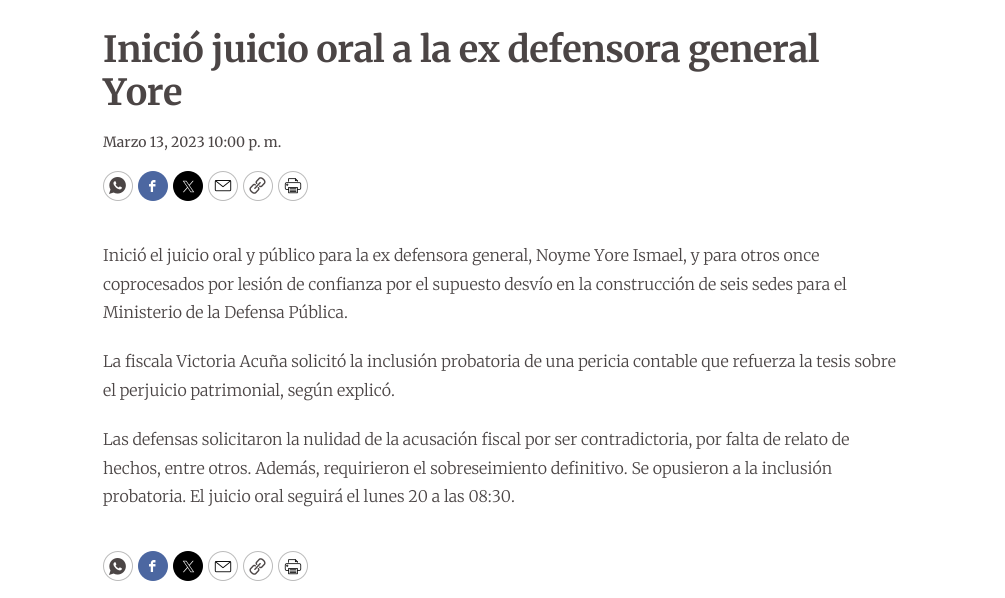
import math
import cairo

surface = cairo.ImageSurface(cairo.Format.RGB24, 1005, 598)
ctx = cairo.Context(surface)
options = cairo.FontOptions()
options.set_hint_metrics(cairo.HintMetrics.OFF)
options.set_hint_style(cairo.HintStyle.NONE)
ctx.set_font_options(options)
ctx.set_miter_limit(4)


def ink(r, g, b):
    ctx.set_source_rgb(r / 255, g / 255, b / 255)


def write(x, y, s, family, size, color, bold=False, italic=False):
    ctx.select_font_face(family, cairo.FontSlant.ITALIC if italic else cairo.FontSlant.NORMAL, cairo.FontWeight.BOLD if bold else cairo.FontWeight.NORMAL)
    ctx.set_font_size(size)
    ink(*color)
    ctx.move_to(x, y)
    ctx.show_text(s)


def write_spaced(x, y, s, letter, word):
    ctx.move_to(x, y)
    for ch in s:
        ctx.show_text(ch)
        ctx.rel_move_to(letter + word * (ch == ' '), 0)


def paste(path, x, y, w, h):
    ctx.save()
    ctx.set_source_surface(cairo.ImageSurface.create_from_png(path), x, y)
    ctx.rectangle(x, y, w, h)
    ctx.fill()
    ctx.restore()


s1 = dict(family="Merriweather", size=14, color=(75, 69, 69))
s2 = dict(family="Merriweather Light", size=16, color=(75, 69, 69))

ink(255, 255, 255)
ctx.paint()
ctx.select_font_face("Merriweather", cairo.FontSlant.NORMAL, cairo.FontWeight.BOLD)
ctx.set_font_size(36)
ink(75, 69, 69)
write_spaced(103, 62, "Inició juicio oral a la ex defensora general", -0.5, 0)
write_spaced(103, 105, "Yore", -0.5, 0)
write(103, 147, "Marzo 13, 2023 10:00 p. m.", **s1)
ctx.new_path()
ctx.arc(118, 186, 14.5, 0, 2 * math.pi)
ink(187, 187, 187)
ctx.set_line_width(1)
ctx.stroke()
paste("pic1.png", 109, 177, 17, 17)
ink(76, 103, 161)
ctx.arc(153, 186, 15, 0, 2 * math.pi)
ctx.fill()
paste("pic2.png", 149, 180, 7, 12)
paste("pic3.png", 173, 171, 30, 30)
ctx.arc(223, 186, 14.5, 0, 2 * math.pi)
ink(187, 187, 187)
ctx.stroke()
paste("pic4.png", 214, 180, 18, 12)
ctx.arc(258, 186, 14.5, 0, 2 * math.pi)
ctx.stroke()
paste("pic5.png", 249, 177, 17, 17)
ctx.arc(293, 186, 14.5, 0, 2 * math.pi)
ctx.stroke()
paste("pic6.png", 284, 178, 18, 16)
write(103, 261, "Inició el juicio oral y público para la ex defensora general, Noyme Yore Ismael, y para otros once", **s2)
write(103, 290, "coprocesados por lesión de confianza por el supuesto desvío en la construcción de seis sedes para el", **s2)
write(103, 318, "Ministerio de la Defensa Pública.", **s2)
write(103, 367, "La fiscala Victoria Acuña solicitó la inclusión probatoria de una pericia contable que refuerza la tesis sobre", **s2)
write(103, 396, "el perjuicio patrimonial, según explicó.", **s2)
write(103, 445, "Las defensas solicitaron la nulidad de la acusación fiscal por ser contradictoria, por falta de relato de", **s2)
write(103, 474, "hechos, entre otros. Además, requirieron el sobreseimiento definitivo. Se opusieron a la inclusión", **s2)
write(103, 502, "probatoria. El juicio oral seguirá el lunes 20 a las 08:30.", **s2)
ctx.new_path()
ctx.arc(118, 566, 14.5, 0, 2 * math.pi)
ink(187, 187, 187)
ctx.stroke()
paste("pic1.png", 109, 558, 17, 17)
ink(76, 103, 161)
ctx.arc(153, 566, 15, 0, 2 * math.pi)
ctx.fill()
paste("pic2.png", 149, 560, 7, 12)
paste("pic3.png", 173, 551, 30, 30)
ctx.arc(223, 566, 14.5, 0, 2 * math.pi)
ink(187, 187, 187)
ctx.stroke()
paste("pic4.png", 214, 561, 18, 12)
ctx.arc(258, 566, 14.5, 0, 2 * math.pi)
ctx.stroke()
paste("pic5.png", 249, 558, 17, 17)
ctx.arc(293, 566, 14.5, 0, 2 * math.pi)
ctx.stroke()
paste("pic6.png", 284, 559, 18, 16)
surface.write_to_png("screenshot.png")
